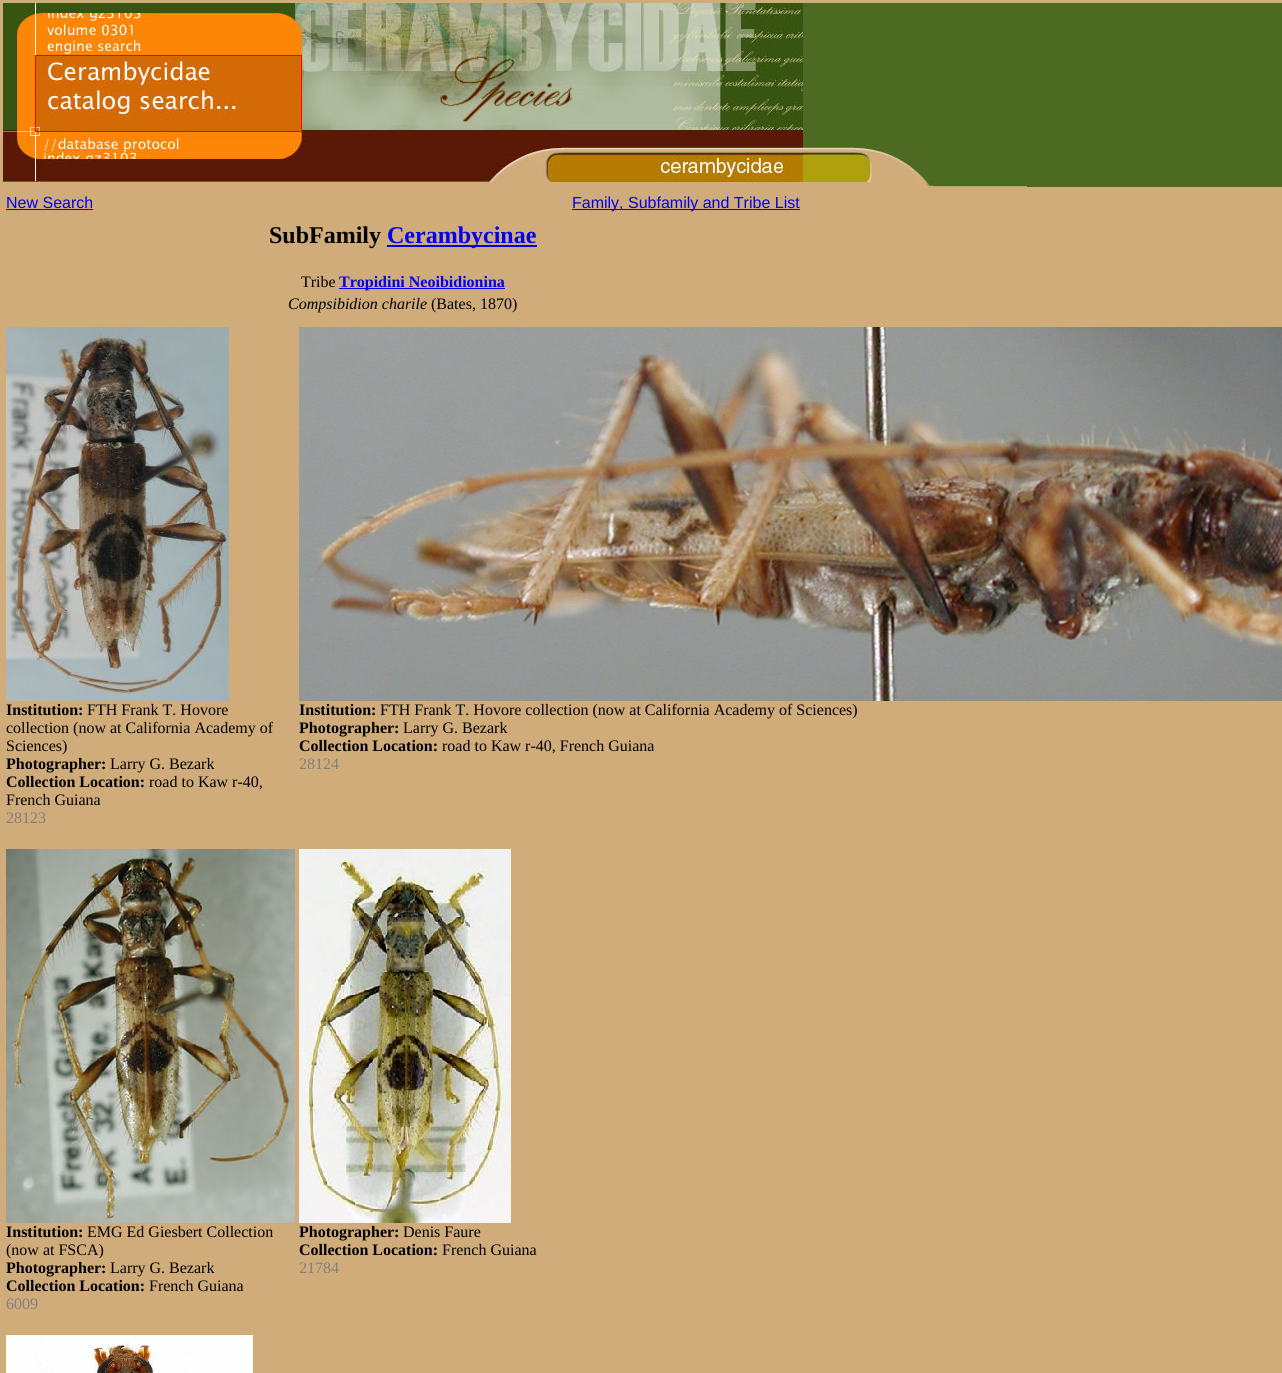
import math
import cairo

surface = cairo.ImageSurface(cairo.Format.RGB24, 1282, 1373)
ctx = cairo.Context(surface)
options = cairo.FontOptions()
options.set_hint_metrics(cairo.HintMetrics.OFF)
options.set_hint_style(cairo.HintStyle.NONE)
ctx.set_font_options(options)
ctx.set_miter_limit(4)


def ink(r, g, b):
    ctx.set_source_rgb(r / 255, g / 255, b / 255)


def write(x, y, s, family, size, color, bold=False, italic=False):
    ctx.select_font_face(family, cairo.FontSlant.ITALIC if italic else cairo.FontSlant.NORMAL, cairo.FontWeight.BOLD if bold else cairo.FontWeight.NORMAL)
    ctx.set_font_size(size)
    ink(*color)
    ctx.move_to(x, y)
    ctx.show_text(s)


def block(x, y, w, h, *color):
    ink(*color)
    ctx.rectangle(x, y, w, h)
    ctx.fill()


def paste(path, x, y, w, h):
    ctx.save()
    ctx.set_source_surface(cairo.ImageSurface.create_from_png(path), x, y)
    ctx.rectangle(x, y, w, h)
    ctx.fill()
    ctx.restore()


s1 = dict(family="Liberation Sans", size=16, color=(0, 0, 238))
s2 = dict(family="Liberation Serif", size=24, color=(0, 0, 0), bold=True)
s3 = dict(family="Liberation Serif", size=24, color=(0, 0, 238), bold=True)
s4 = dict(family="Liberation Serif", size=16, color=(0, 0, 0))
s5 = dict(family="Liberation Serif", size=16, color=(0, 0, 238), bold=True)
s6 = dict(family="Liberation Serif", size=16, color=(0, 0, 0), italic=True)
s7 = dict(family="Liberation Serif", size=16, color=(0, 0, 0), bold=True)
s8 = dict(family="Liberation Serif", size=16, color=(128, 128, 128))

ink(209, 172, 123)
ctx.paint()
paste("pic1.png", 3, 3, 1279, 184)
write(6, 208, "New Search", **s1)
block(6, 209, 87, 1, 0, 0, 238)
block(572, 209, 228, 1, 0, 0, 238)
write(572, 208, "Family, Subfamily and Tribe List", **s1)
write(269, 243, "SubFamily", **s2)
block(387, 245, 150, 2, 0, 0, 238)
write(387, 243, "Cerambycinae", **s3)
write(301, 287, "Tribe", **s4)
block(339, 288, 166, 1, 0, 0, 238)
write(339, 287, "Tropidini Neoibidionina", **s5)
write(288, 309, "Compsibidion charile", **s6)
write(431, 309, "(Bates, 1870)", **s4)
paste("pic2.png", 6, 327, 223, 374)
write(6, 715, "Institution:", **s7)
write(87, 715, "FTH Frank T. Hovore", **s4)
write(6, 733, "collection (now at California Academy of", **s4)
write(6, 751, "Sciences)", **s4)
write(6, 769, "Photographer:", **s7)
write(110, 769, "Larry G. Bezark", **s4)
write(6, 787, "Collection Location:", **s7)
write(149, 787, "road to Kaw r-40,", **s4)
write(6, 805, "French Guiana", **s4)
write(6, 823, "28123", **s8)
paste("pic3.png", 299, 327, 983, 374)
write(299, 715, "Institution:", **s7)
write(380, 715, "FTH Frank T. Hovore collection (now at California Academy of Sciences)", **s4)
write(299, 733, "Photographer:", **s7)
write(403, 733, "Larry G. Bezark", **s4)
write(299, 751, "Collection Location:", **s7)
write(442, 751, "road to Kaw r-40, French Guiana", **s4)
write(299, 769, "28124", **s8)
paste("pic4.png", 6, 849, 289, 374)
write(6, 1237, "Institution:", **s7)
write(87, 1237, "EMG Ed Giesbert Collection", **s4)
write(6, 1255, "(now at FSCA)", **s4)
write(6, 1273, "Photographer:", **s7)
write(110, 1273, "Larry G. Bezark", **s4)
write(6, 1291, "Collection Location:", **s7)
write(149, 1291, "French Guiana", **s4)
write(6, 1309, "6009", **s8)
paste("pic5.png", 299, 849, 212, 374)
write(299, 1237, "Photographer:", **s7)
write(403, 1237, "Denis Faure", **s4)
write(299, 1255, "Collection Location:", **s7)
write(442, 1255, "French Guiana", **s4)
write(299, 1273, "21784", **s8)
paste("pic6.png", 6, 1335, 247, 38)
surface.write_to_png("screenshot.png")
